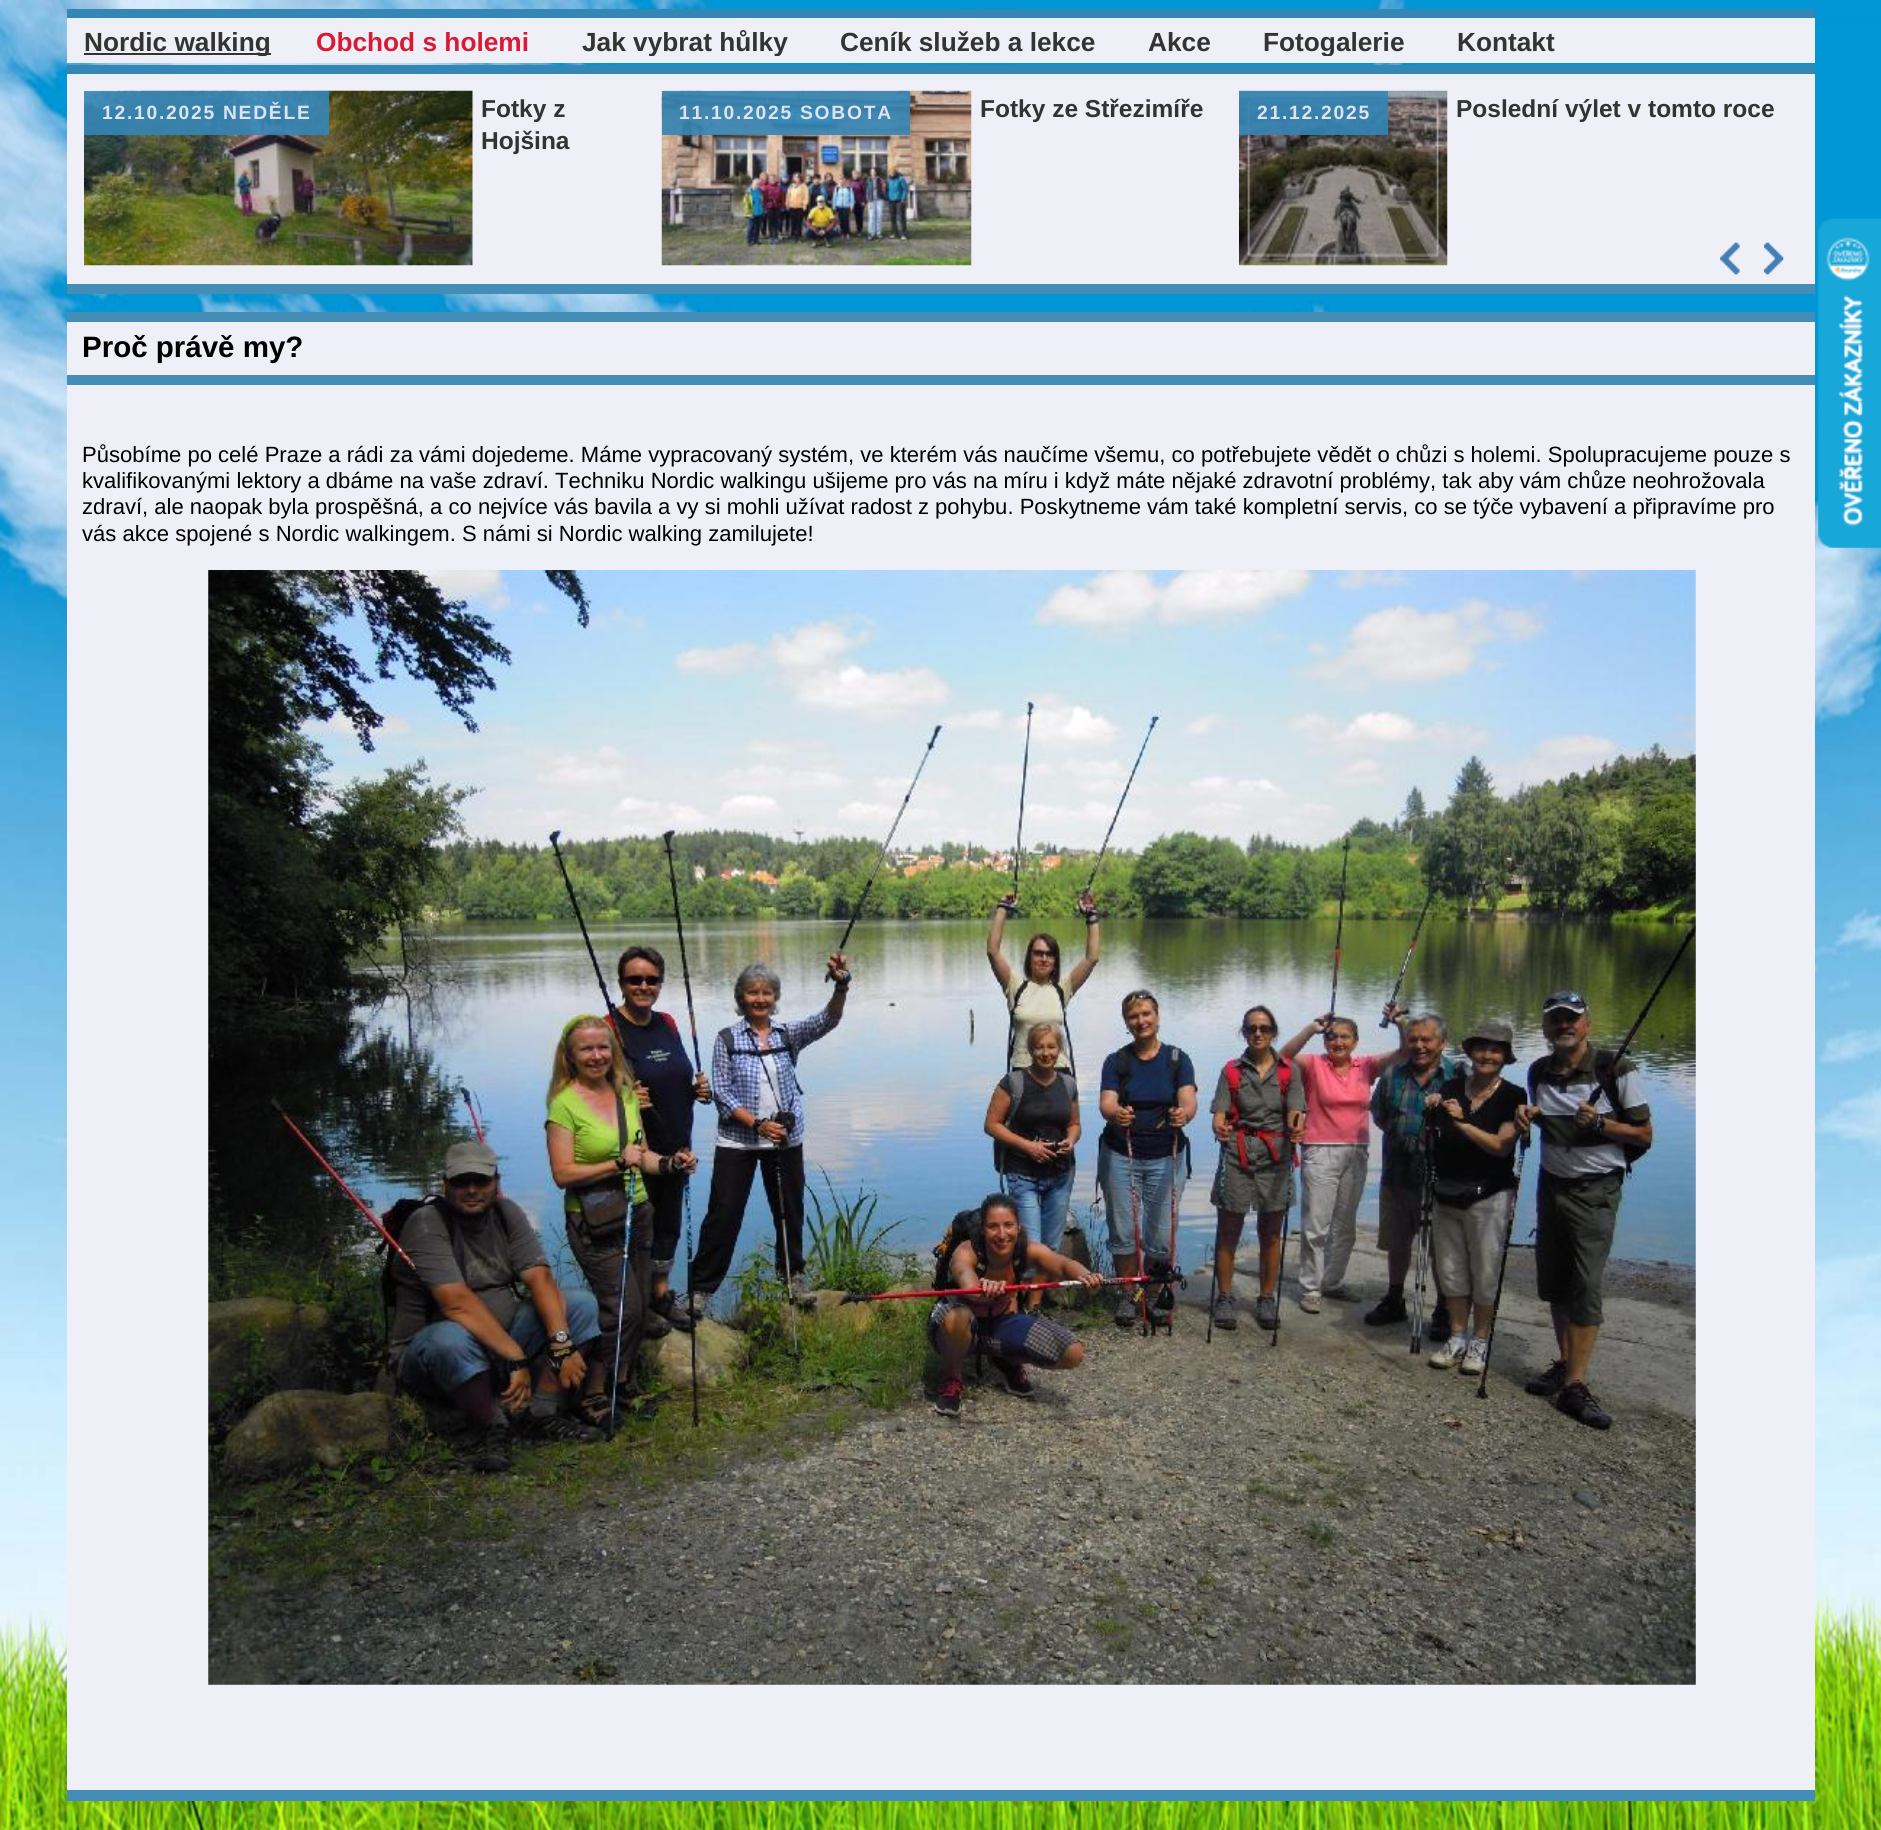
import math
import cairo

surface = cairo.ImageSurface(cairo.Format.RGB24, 1881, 1830)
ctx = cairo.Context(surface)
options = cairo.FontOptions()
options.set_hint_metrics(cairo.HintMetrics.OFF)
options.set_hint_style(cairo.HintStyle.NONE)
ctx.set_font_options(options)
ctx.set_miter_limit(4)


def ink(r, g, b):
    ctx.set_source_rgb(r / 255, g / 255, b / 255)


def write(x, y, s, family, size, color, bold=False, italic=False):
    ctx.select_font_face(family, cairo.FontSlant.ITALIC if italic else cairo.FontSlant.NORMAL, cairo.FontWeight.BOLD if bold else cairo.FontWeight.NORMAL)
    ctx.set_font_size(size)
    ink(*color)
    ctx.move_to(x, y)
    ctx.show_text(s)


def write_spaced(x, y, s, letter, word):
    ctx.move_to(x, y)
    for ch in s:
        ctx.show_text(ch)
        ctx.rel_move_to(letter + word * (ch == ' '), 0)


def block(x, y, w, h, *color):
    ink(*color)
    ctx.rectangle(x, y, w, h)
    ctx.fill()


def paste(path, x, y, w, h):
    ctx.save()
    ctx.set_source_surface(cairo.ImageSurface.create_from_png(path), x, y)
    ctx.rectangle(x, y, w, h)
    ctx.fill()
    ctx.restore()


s1 = dict(family="Liberation Sans", size=26.25, color=(51, 51, 51), bold=True)
s2 = dict(family="Liberation Sans", size=26.25, color=(218, 26, 53), bold=True)
s3 = dict(family="Liberation Sans", size=24.5, color=(51, 51, 51), bold=True)
s4 = dict(family="Liberation Sans", size=29.5, color=(0, 0, 0), bold=True)
s5 = dict(family="Liberation Sans", size=22.05, color=(0, 0, 0))

ink(255, 255, 255)
ctx.paint()
paste("pic1.png", 0, 0, 1881, 1830)
block(67, 9, 1748, 9, 52, 134, 181)
block(67, 18, 1748, 45, 239, 239, 247)
block(84, 53, 187, 2, 51, 51, 51)
ctx.save()
ctx.rectangle(75, 26, 1505, 30)
ctx.clip()
write(84, 51, "Nordic walking", **s1)
ctx.restore()
write(316, 51, "Obchod s holemi", **s2)
ctx.save()
ctx.rectangle(75, 26, 1505, 30)
ctx.clip()
write(582, 51, "Jak vybrat hůlky", **s1)
ctx.restore()
write(840, 51, "Ceník služeb a lekce", **s1)
write(1148, 51, "Akce", **s1)
ctx.save()
ctx.rectangle(75, 26, 1505, 30)
ctx.clip()
write(1263, 51, "Fotogalerie", **s1)
ctx.restore()
write(1457, 51, "Kontakt", **s1)
block(67, 65, 1748, 9, 52, 134, 181)
block(67, 284, 1748, 10, 67, 141, 182)
block(67, 74, 1748, 210, 239, 239, 247)
paste("pic2.png", 84, 90, 389, 176)
write(481, 117, "Fotky z", **s3)
write(481, 149, "Hojšina", **s3)
ctx.set_source_rgba(0.204, 0.525, 0.71, 0.9)
ctx.rectangle(84, 91, 245, 44)
ctx.fill()
ctx.set_font_size(19.25)
ink(221, 228, 240)
write_spaced(102, 119, "12.10.2025 NEDĚLE", 1.75, 0)
paste("pic3.png", 661, 90, 311, 176)
write(980, 117, "Fotky ze Střezimíře", **s3)
ctx.set_source_rgba(0.204, 0.525, 0.71, 0.9)
ctx.rectangle(662, 91, 248, 44)
ctx.fill()
ctx.set_font_size(19.25)
ink(221, 228, 240)
write_spaced(679, 119, "11.10.2025 SOBOTA", 1.75, 0)
paste("pic4.png", 1239, 90, 209, 176)
write(1456, 117, "Poslední výlet v tomto roce", **s3)
ctx.set_source_rgba(0.204, 0.525, 0.71, 0.9)
ctx.rectangle(1239, 91, 149, 44)
ctx.fill()
ctx.set_font_size(19.25)
ink(221, 228, 240)
write_spaced(1257, 119, "21.12.2025", 1.75, 0)
paste("pic5.png", 1720, 242, 20, 33)
paste("pic6.png", 1764, 242, 20, 33)
block(67, 322, 1748, 1468, 239, 239, 247)
block(67, 312, 1748, 10, 67, 141, 182)
block(67, 1790, 1748, 11, 67, 141, 182)
block(67, 375, 1748, 10, 67, 141, 182)
write(82, 357, "Proč právě my?", **s4)
write(82, 462, "Působíme po celé Praze a rádi za vámi dojedeme. Máme vypracovaný systém, ve kterém vás naučíme všemu, co potřebujete vědět o chůzi s holemi. Spolupracujeme pouze s", **s5)
write(82, 488, "kvalifikovanými lektory a dbáme na vaše zdraví. Techniku Nordic walkingu ušijeme pro vás na míru i když máte nějaké zdravotní problémy, tak aby vám chůze neohrožovala", **s5)
write(82, 514, "zdraví, ale naopak byla prospěšná, a co nejvíce vás bavila a vy si mohli užívat radost z pohybu. Poskytneme vám také kompletní servis, co se týče vybavení a připravíme pro", **s5)
write(82, 541, "vás akce spojené s Nordic walkingem. S námi si Nordic walking zamilujete!", **s5)
paste("pic7.png", 208, 570, 1488, 1115)
paste("pic8.png", 1818, 218, 63, 330)
surface.write_to_png("screenshot.png")
